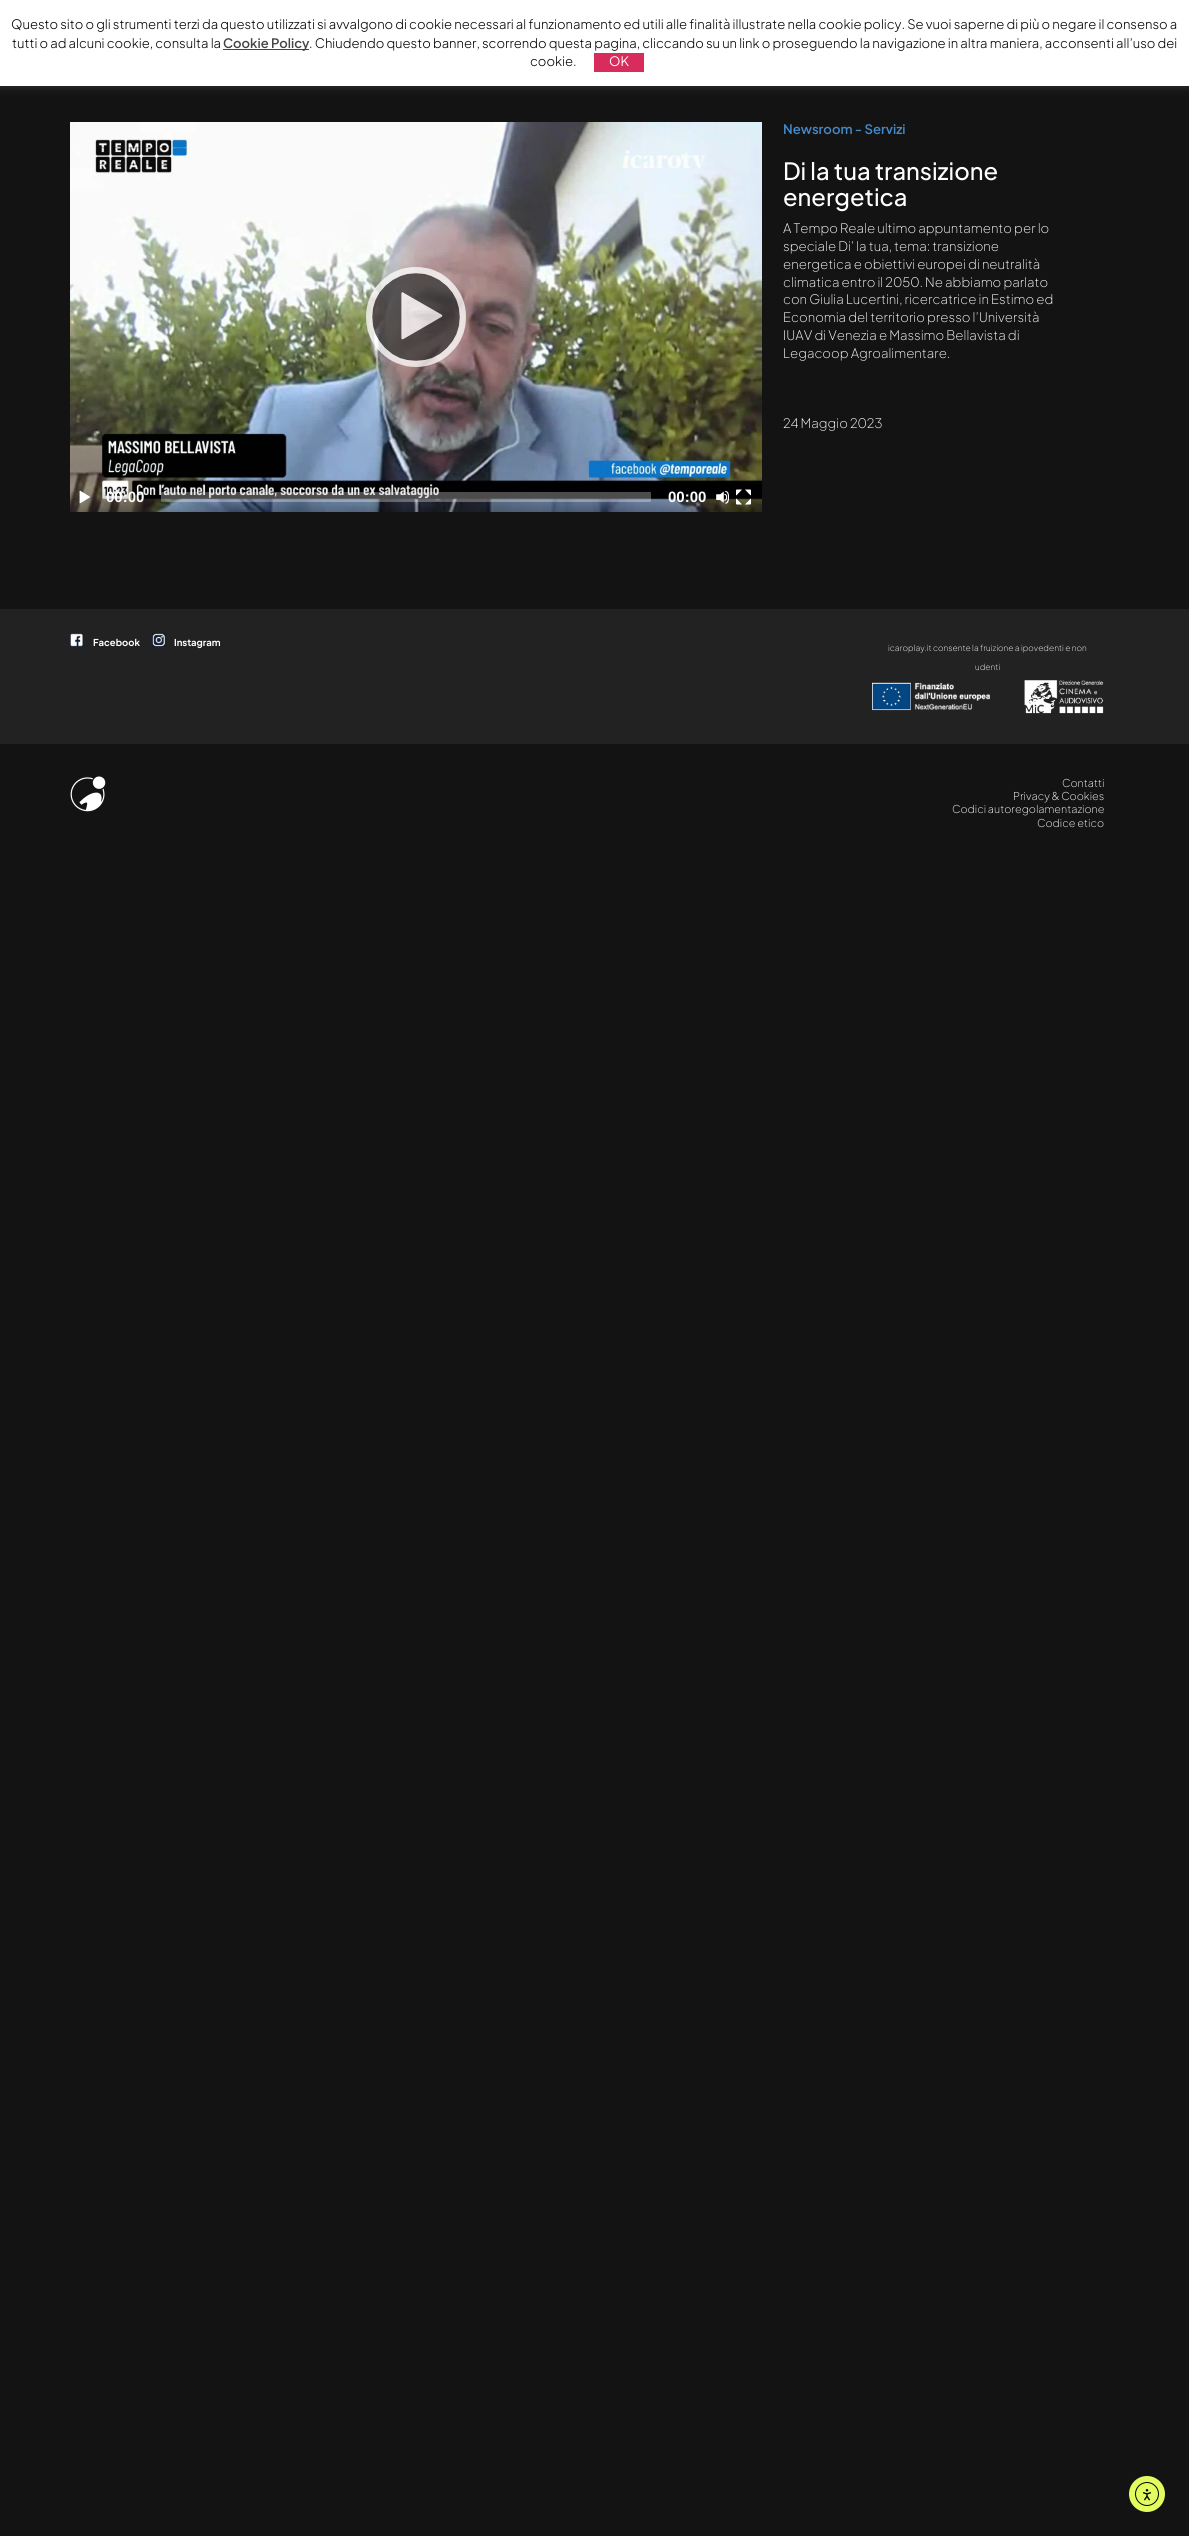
import math
import cairo

surface = cairo.ImageSurface(cairo.Format.RGB24, 1189, 2536)
ctx = cairo.Context(surface)
options = cairo.FontOptions()
options.set_hint_metrics(cairo.HintMetrics.OFF)
options.set_hint_style(cairo.HintStyle.NONE)
ctx.set_font_options(options)
ctx.set_miter_limit(4)


def ink(r, g, b):
    ctx.set_source_rgb(r / 255, g / 255, b / 255)


def write(x, y, s, family, size, color, bold=False, italic=False):
    ctx.select_font_face(family, cairo.FontSlant.ITALIC if italic else cairo.FontSlant.NORMAL, cairo.FontWeight.BOLD if bold else cairo.FontWeight.NORMAL)
    ctx.set_font_size(size)
    ink(*color)
    ctx.move_to(x, y)
    ctx.show_text(s)


def block(x, y, w, h, *color):
    ink(*color)
    ctx.rectangle(x, y, w, h)
    ctx.fill()


def round_path(x, y, w, h, r):
    ctx.new_sub_path()
    for i, (u, v) in enumerate([(x + w - r, y + h - r), (x + r, y + h - r), (x + r, y + r), (x + w - r, y + r)]):
        ctx.arc(u, v, r, i * math.pi / 2, (i + 1) * math.pi / 2)
    ctx.close_path()


def blur_box(x, y, w, h, r, blur, alpha):
    ctx.push_group_with_content(cairo.Content.ALPHA)
    ctx.set_operator(cairo.Operator.SOURCE)
    for i in range(15, -16, -2):
        e = blur * i / 6
        if min(w, h) + 2 * e > 0:
            ctx.set_source_rgba(0, 0, 0, alpha * math.erfc((i - 1) / 8.5) / 2)
            round_path(x - e, y - e, w + 2 * e, h + 2 * e, max(0, min(r + e + blur * .6, min(w, h) / 2 + e)))
            ctx.fill()
    ctx.mask(ctx.pop_group())


def paste(path, x, y, w, h):
    ctx.save()
    ctx.set_source_surface(cairo.ImageSurface.create_from_png(path), x, y)
    ctx.rectangle(x, y, w, h)
    ctx.fill()
    ctx.restore()


s1 = dict(family="Plus Jakarta Sans Light", size=13, color=(0, 0, 0))
s2 = dict(family="Plus Jakarta Sans SemiBold", size=13, color=(68, 68, 68))
s3 = dict(family="Plus Jakarta Sans", size=13, color=(255, 255, 255))
s4 = dict(family="Plus Jakarta Sans SemiBold", size=13.1, color=(66, 139, 202))
s5 = dict(family="Plus Jakarta Sans Medium", size=23.75, color=(255, 255, 255))
s6 = dict(family="Plus Jakarta Sans ExtraLight", size=13.1, color=(255, 255, 255))
s7 = dict(family="Liberation Sans", size=15, color=(255, 255, 255), bold=True)
s8 = dict(family="Plus Jakarta Sans", size=9.5, color=(255, 255, 255), bold=True)
s9 = dict(family="Plus Jakarta Sans ExtraLight", size=8.3, color=(255, 255, 255))
s10 = dict(family="Plus Jakarta Sans ExtraLight", size=10.75, color=(255, 255, 255))

ink(19, 19, 19)
ctx.paint()
ink(172, 171, 171)
blur_box(0, -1, 1189, 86, 0, 5, 0.3)
block(0, 0, 1189, 86, 255, 255, 255)
write(11, 29, "Questo sito o gli strumenti terzi da questo utilizzati si avvalgono di cookie necessari al funzionamento ed utili alle finalità illustrate nella cookie policy. Se vuoi saperne di più o negare il consenso a", **s1)
write(12, 48, "tutti o ad alcuni cookie, consulta la", **s1)
block(223, 49, 86, 1, 68, 68, 68)
write(223, 48, "Cookie Policy", **s2)
write(309, 48, ". Chiudendo questo banner, scorrendo questa pagina, cliccando su un link o proseguendo la navigazione in altra maniera, acconsenti all’uso dei", **s1)
write(530, 66, "cookie.", **s1)
block(594, 53, 50, 19, 215, 44, 92)
write(609, 66, "OK", **s3)
write(783, 134, "Newsroom - Servizi", **s4)
write(783, 180, "Di la tua transizione", **s5)
write(783, 206, "energetica", **s5)
write(783, 233, "A Tempo Reale ultimo appuntamento per lo", **s6)
write(783, 251, "speciale Di’ la tua, tema: transizione", **s6)
write(783, 269, "energetica e obiettivi europei di neutralità", **s6)
write(783, 287, "climatica entro il 2050. Ne abbiamo parlato", **s6)
write(783, 304, "con Giulia Lucertini, ricercatrice in Estimo ed", **s6)
write(783, 322, "Economia del territorio presso l’Università", **s6)
write(783, 340, "IUAV di Venezia e Massimo Bellavista di", **s6)
write(783, 358, "Legacoop Agroalimentare.", **s6)
write(783, 428, "24 Maggio 2023", **s6)
paste("pic1.png", 70, 122, 692, 390)
paste("pic2.png", 366, 267, 100, 100)
paste("pic3.png", 79, 490, 11, 14)
write(106, 502, "00:00", **s7)
ctx.set_source_rgba(1, 1, 1, 0.3)
round_path(161, 492, 490, 10, 1)
ctx.fill()
write(668, 502, "00:00", **s7)
paste("pic4.png", 716, 491, 13, 13)
paste("pic5.png", 736, 489, 15, 16)
block(0, 609, 1189, 135, 34, 34, 34)
paste("pic6.png", 70, 633, 14, 14)
write(93, 646, "Facebook", **s8)
paste("pic7.png", 152, 633, 14, 14)
write(174, 646, "Instagram", **s8)
write(888, 651, "icaroplay.it consente la fruizione a ipovedenti e non", **s9)
write(975, 670, "udenti", **s9)
paste("pic8.png", 872, 680, 232, 34)
paste("pic9.png", 70, 776, 36, 36)
write(1062, 787, "Contatti", **s10)
write(1013, 800, "Privacy & Cookies", **s10)
write(952, 813, "Codici autoregolamentazione", **s10)
write(1037, 827, "Codice etico", **s10)
ink(226, 252, 96)
ctx.new_path()
ctx.arc(1147, 2494, 18, 0, 2 * math.pi)
ctx.fill()
ctx.arc(1147, 2494, 11.5, 0, 2 * math.pi)
ink(0, 0, 0)
ctx.set_line_width(1)
ctx.stroke()
paste("pic10.png", 1142, 2489, 10, 12)
surface.write_to_png("screenshot.png")
